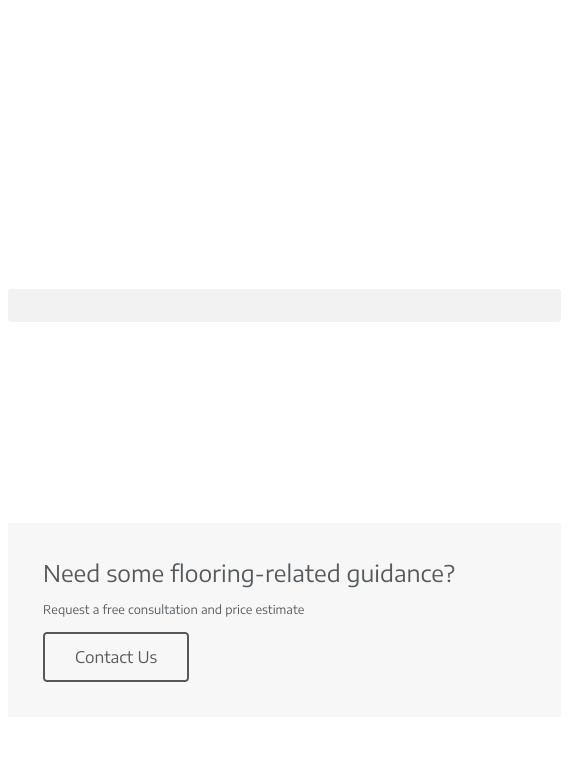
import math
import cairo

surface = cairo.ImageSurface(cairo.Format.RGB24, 569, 757)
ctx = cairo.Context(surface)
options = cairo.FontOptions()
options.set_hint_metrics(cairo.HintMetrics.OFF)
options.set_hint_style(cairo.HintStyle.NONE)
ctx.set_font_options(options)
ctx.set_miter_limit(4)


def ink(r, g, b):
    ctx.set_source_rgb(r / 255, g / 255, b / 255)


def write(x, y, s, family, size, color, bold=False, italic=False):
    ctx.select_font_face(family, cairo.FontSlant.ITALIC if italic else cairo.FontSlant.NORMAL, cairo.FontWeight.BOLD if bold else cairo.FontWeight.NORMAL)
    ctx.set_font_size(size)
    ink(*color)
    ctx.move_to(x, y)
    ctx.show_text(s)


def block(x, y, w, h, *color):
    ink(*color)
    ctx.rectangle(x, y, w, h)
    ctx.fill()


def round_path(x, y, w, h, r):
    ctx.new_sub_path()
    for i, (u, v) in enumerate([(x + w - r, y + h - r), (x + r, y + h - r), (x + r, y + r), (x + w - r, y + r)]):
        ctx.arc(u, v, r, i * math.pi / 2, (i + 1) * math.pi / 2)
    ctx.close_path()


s1 = dict(family="Encode Sans Semi Expanded", size=23, color=(85, 89, 92))
s2 = dict(family="Encode Sans Semi Expanded", size=12, color=(85, 89, 92))
s3 = dict(family="Encode Sans Semi Expanded", size=16, color=(85, 89, 92))

ink(255, 255, 255)
ctx.paint()
ink(242, 242, 242)
round_path(8, 289, 553, 33, 3)
ctx.fill()
block(8, 523, 553, 194, 247, 247, 247)
write(43, 582, "Need some flooring-related guidance?", **s1)
write(43, 614, "Request a free consultation and price estimate", **s2)
round_path(44, 633, 144, 48, 3)
ctx.stroke()
write(75, 663, "Contact Us", **s3)
surface.write_to_png("screenshot.png")
